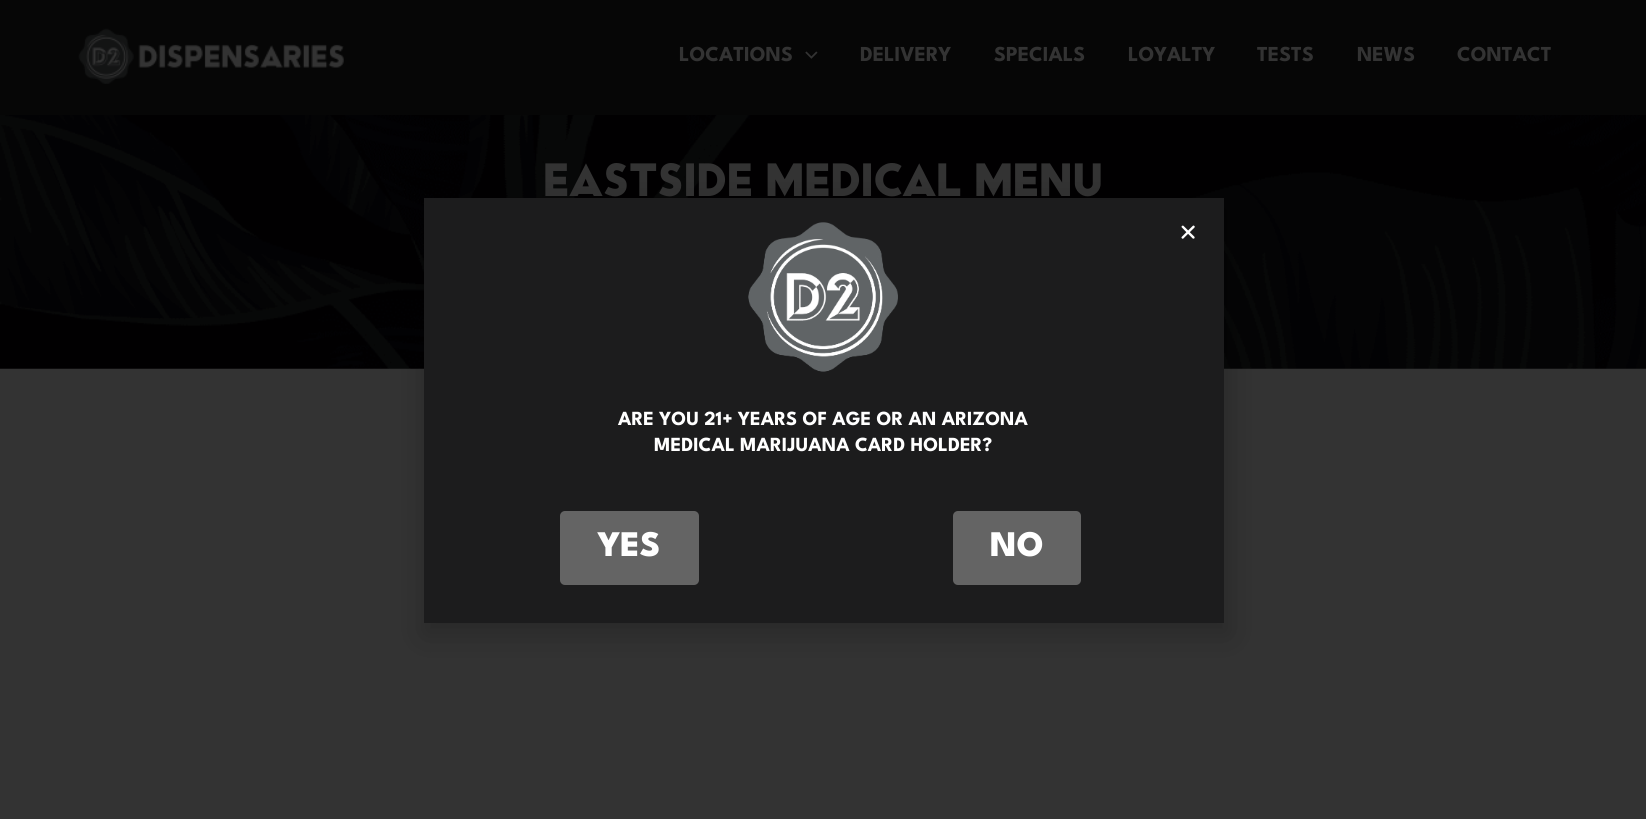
import math
import cairo

surface = cairo.ImageSurface(cairo.Format.RGB24, 1646, 819)
ctx = cairo.Context(surface)
options = cairo.FontOptions()
options.set_hint_metrics(cairo.HintMetrics.OFF)
options.set_hint_style(cairo.HintStyle.NONE)
ctx.set_font_options(options)
ctx.set_miter_limit(4)


def ink(r, g, b):
    ctx.set_source_rgb(r / 255, g / 255, b / 255)


def write(x, y, s, family, size, color, bold=False, italic=False):
    ctx.select_font_face(family, cairo.FontSlant.ITALIC if italic else cairo.FontSlant.NORMAL, cairo.FontWeight.BOLD if bold else cairo.FontWeight.NORMAL)
    ctx.set_font_size(size)
    ink(*color)
    ctx.move_to(x, y)
    ctx.show_text(s)


def block(x, y, w, h, *color):
    ink(*color)
    ctx.rectangle(x, y, w, h)
    ctx.fill()


def round_path(x, y, w, h, r):
    ctx.new_sub_path()
    for i, (u, v) in enumerate([(x + w - r, y + h - r), (x + r, y + h - r), (x + r, y + r), (x + w - r, y + r)]):
        ctx.arc(u, v, r, i * math.pi / 2, (i + 1) * math.pi / 2)
    ctx.close_path()


def blur_box(x, y, w, h, r, blur, alpha):
    ctx.push_group_with_content(cairo.Content.ALPHA)
    ctx.set_operator(cairo.Operator.SOURCE)
    for i in range(15, -16, -2):
        e = blur * i / 6
        if min(w, h) + 2 * e > 0:
            ctx.set_source_rgba(0, 0, 0, alpha * math.erfc((i - 1) / 8.5) / 2)
            round_path(x - e, y - e, w + 2 * e, h + 2 * e, max(0, min(r + e + blur * .6, min(w, h) / 2 + e)))
            ctx.fill()
    ctx.mask(ctx.pop_group())


def paste(path, x, y, w, h):
    ctx.save()
    ctx.set_source_surface(cairo.ImageSurface.create_from_png(path), x, y)
    ctx.rectangle(x, y, w, h)
    ctx.fill()
    ctx.restore()


s1 = dict(family="League Spartan", size=21.25, color=(51, 51, 51), bold=True)
s2 = dict(family="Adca", size=47.5, color=(51, 51, 51))
s3 = dict(family="League Spartan", size=20, color=(255, 255, 255), bold=True)
s4 = dict(family="League Spartan ExtraBold", size=36, color=(255, 255, 255))

ink(51, 51, 51)
ctx.paint()
block(0, 0, 1646, 115, 6, 6, 6)
paste("pic1.png", 78, 28, 266, 56)
write(679, 61, "LOCATIONS", **s1)
paste("pic2.png", 805, 51, 13, 8)
write(860, 61, "DELIVERY", **s1)
write(994, 61, "SPECIALS", **s1)
write(1128, 61, "LOYALTY", **s1)
write(1257, 61, "TESTS", **s1)
write(1357, 61, "NEWS", **s1)
write(1457, 61, "CONTACT", **s1)
paste("pic3.png", 0, 115, 1646, 254)
write(543, 196, "EASTSIDE MEDICAL MENU", **s2)
ink(0, 0, 0)
blur_box(423, 204, 807, 432, 0, 14.5, 0.2)
block(424, 198, 800, 425, 28, 28, 29)
paste("pic4.png", 1181, 225, 14, 14)
paste("pic5.png", 748, 222, 150, 150)
write(618, 425, "ARE YOU 21+ YEARS OF AGE OR AN ARIZONA", **s3)
write(654, 451, "MEDICAL MARIJUANA CARD HOLDER?", **s3)
ink(100, 100, 100)
round_path(560, 511, 139, 74, 5)
ctx.fill()
write(598, 556, "YES", **s4)
ink(100, 100, 100)
round_path(953, 511, 128, 74, 5)
ctx.fill()
write(990, 556, "NO", **s4)
surface.write_to_png("screenshot.png")
